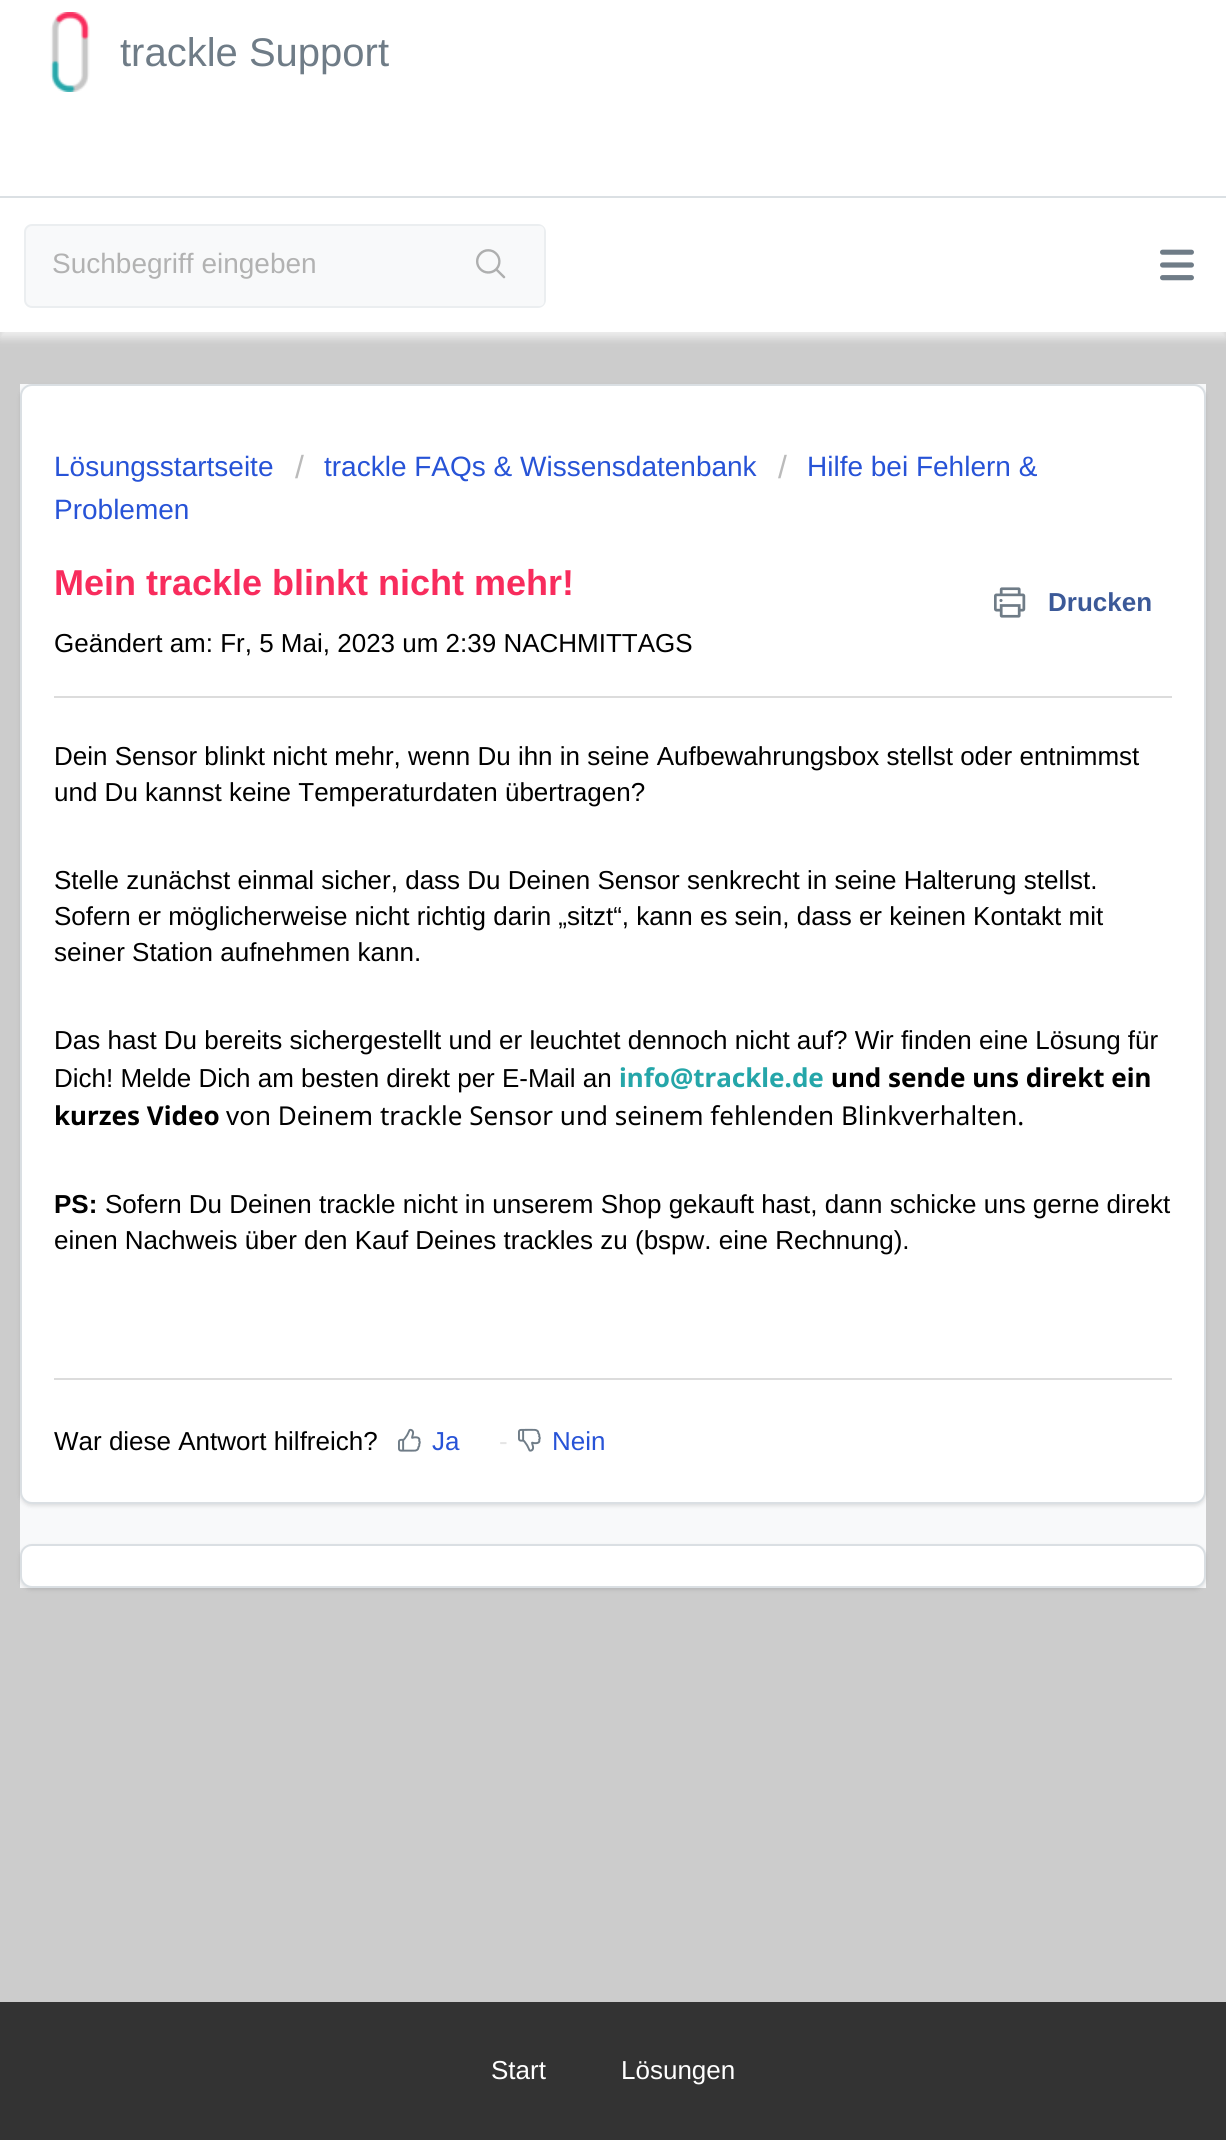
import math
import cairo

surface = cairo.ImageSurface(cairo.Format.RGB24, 1226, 2140)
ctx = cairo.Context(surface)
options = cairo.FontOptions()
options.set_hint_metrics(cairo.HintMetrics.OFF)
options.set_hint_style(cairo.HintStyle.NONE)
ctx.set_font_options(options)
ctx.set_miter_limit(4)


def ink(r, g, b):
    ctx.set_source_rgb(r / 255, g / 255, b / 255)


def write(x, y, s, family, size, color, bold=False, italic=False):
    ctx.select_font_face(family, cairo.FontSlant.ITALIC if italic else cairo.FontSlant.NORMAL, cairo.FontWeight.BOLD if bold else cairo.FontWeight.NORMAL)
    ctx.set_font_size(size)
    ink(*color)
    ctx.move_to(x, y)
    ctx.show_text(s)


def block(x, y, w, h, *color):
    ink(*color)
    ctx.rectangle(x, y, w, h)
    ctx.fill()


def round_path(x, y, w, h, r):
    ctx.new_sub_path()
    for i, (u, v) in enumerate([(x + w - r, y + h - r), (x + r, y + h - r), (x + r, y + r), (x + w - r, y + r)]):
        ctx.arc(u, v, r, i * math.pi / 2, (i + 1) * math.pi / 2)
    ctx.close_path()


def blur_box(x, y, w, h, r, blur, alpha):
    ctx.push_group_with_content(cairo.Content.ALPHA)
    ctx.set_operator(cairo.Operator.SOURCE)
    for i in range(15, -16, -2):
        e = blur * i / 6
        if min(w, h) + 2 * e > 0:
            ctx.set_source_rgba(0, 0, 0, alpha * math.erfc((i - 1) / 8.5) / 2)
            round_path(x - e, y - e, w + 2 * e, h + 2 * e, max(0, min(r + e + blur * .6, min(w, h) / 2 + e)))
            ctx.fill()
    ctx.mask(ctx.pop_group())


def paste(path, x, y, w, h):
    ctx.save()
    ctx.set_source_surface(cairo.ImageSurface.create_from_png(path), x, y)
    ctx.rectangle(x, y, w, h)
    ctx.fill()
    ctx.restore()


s1 = dict(family="Liberation Sans", size=40, color=(111, 124, 135))
s2 = dict(family="Liberation Sans", size=28, color=(178, 178, 178))
s3 = dict(family="Liberation Sans", size=28, color=(39, 83, 215))
s4 = dict(family="Liberation Sans", size=32, color=(187, 187, 187))
s5 = dict(family="Liberation Sans", size=36, color=(248, 44, 93), bold=True)
s6 = dict(family="Liberation Sans", size=26, color=(59, 89, 152), bold=True)
s7 = dict(family="Liberation Sans", size=26, color=(0, 0, 0))
s8 = dict(family="Noto Sans", size=26, color=(37, 166, 169), bold=True)
s9 = dict(family="Noto Sans", size=26, color=(0, 0, 0), bold=True)
s10 = dict(family="Noto Sans", size=26, color=(0, 0, 0))
s11 = dict(family="Liberation Sans", size=26, color=(0, 0, 0), bold=True)
s12 = dict(family="Liberation Sans", size=26, color=(39, 83, 215))
s13 = dict(family="Liberation Sans", size=26, color=(229, 229, 229))
s14 = dict(family="Liberation Sans", size=26, color=(255, 255, 255))

ink(204, 204, 204)
ctx.paint()
block(0, 0, 1226, 196, 255, 255, 255)
block(0, 196, 1226, 2, 218, 223, 227)
paste("pic1.png", 50, 12, 40, 80)
write(120, 66, "trackle Support", **s1)
ink(238, 238, 238)
blur_box(0, 204, 1226, 134, 0, 4, 1)
block(0, 198, 1226, 134, 255, 255, 255)
paste("pic2.png", 1160, 249, 34, 32)
ink(248, 249, 250)
round_path(25, 225, 520, 82, 7)
ctx.fill_preserve()
ink(235, 238, 240)
ctx.stroke()
write(52, 273, "Suchbegriff eingeben", **s2)
ink(248, 249, 250)
round_path(440, 226, 104, 80, 4)
ctx.fill()
paste("pic3.png", 476, 249, 30, 30)
block(20, 384, 1186, 1204, 248, 249, 250)
ink(63, 63, 68)
blur_box(20, 386, 1186, 1120, 12, 2, 0.15)
ink(255, 255, 255)
round_path(21, 385, 1184, 1118, 11)
ctx.fill_preserve()
ink(218, 223, 227)
ctx.stroke()
write(54, 476, "Lösungsstartseite", **s3)
write(295, 478, "/", **s4)
write(324, 476, "trackle FAQs & Wissensdatenbank", **s3)
write(778, 478, "/", **s4)
write(807, 476, "Hilfe bei Fehlern &", **s3)
write(54, 519, "Problemen", **s3)
write(54, 595, "Mein trackle blinkt nicht mehr!", **s5)
paste("pic4.png", 994, 587, 32, 31)
write(1048, 611, "Drucken", **s6)
write(54, 652, "Geändert am: Fr, 5 Mai, 2023 um 2:39 NACHMITTAGS", **s7)
block(54, 696, 1118, 2, 220, 220, 220)
write(54, 765, "Dein Sensor blinkt nicht mehr, wenn Du ihn in seine Aufbewahrungsbox stellst oder entnimmst", **s7)
write(54, 801, "und Du kannst keine Temperaturdaten übertragen?", **s7)
write(54, 889, "Stelle zunächst einmal sicher, dass Du Deinen Sensor senkrecht in seine Halterung stellst.", **s7)
write(54, 925, "Sofern er möglicherweise nicht richtig darin „sitzt“, kann es sein, dass er keinen Kontakt mit", **s7)
write(54, 961, "seiner Station aufnehmen kann.", **s7)
write(54, 1049, "Das hast Du bereits sichergestellt und er leuchtet dennoch nicht auf? Wir finden eine Lösung für", **s7)
write(54, 1087, "Dich! Melde Dich am besten direkt per E-Mail an", **s7)
write(619, 1087, "info@trackle.de", **s8)
write(831, 1087, "und sende uns direkt ein", **s9)
write(54, 1125, "kurzes Video", **s9)
write(226, 1125, "von Deinem trackle Sensor und seinem fehlenden Blinkverhalten.", **s10)
write(54, 1213, "PS:", **s11)
write(105, 1213, "Sofern Du Deinen trackle nicht in unserem Shop gekauft hast, dann schicke uns gerne direkt", **s7)
write(54, 1249, "einen Nachweis über den Kauf Deines trackles zu (bspw. eine Rechnung).", **s7)
block(54, 1378, 1118, 2, 220, 220, 220)
write(54, 1450, "War diese Antwort hilfreich?", **s7)
paste("pic5.png", 398, 1428, 23, 24)
write(432, 1450, "Ja", **s12)
write(499, 1450, "-", **s13)
paste("pic6.png", 518, 1428, 23, 24)
write(552, 1450, "Nein", **s12)
ink(63, 63, 68)
blur_box(20, 1546, 1186, 44, 12, 2, 0.15)
ink(255, 255, 255)
round_path(21, 1545, 1184, 42, 11)
ctx.fill_preserve()
ink(218, 223, 227)
ctx.stroke()
block(0, 2002, 1226, 138, 51, 51, 51)
write(491, 2079, "Start", **s14)
write(621, 2079, "Lösungen", **s14)
surface.write_to_png("screenshot.png")
